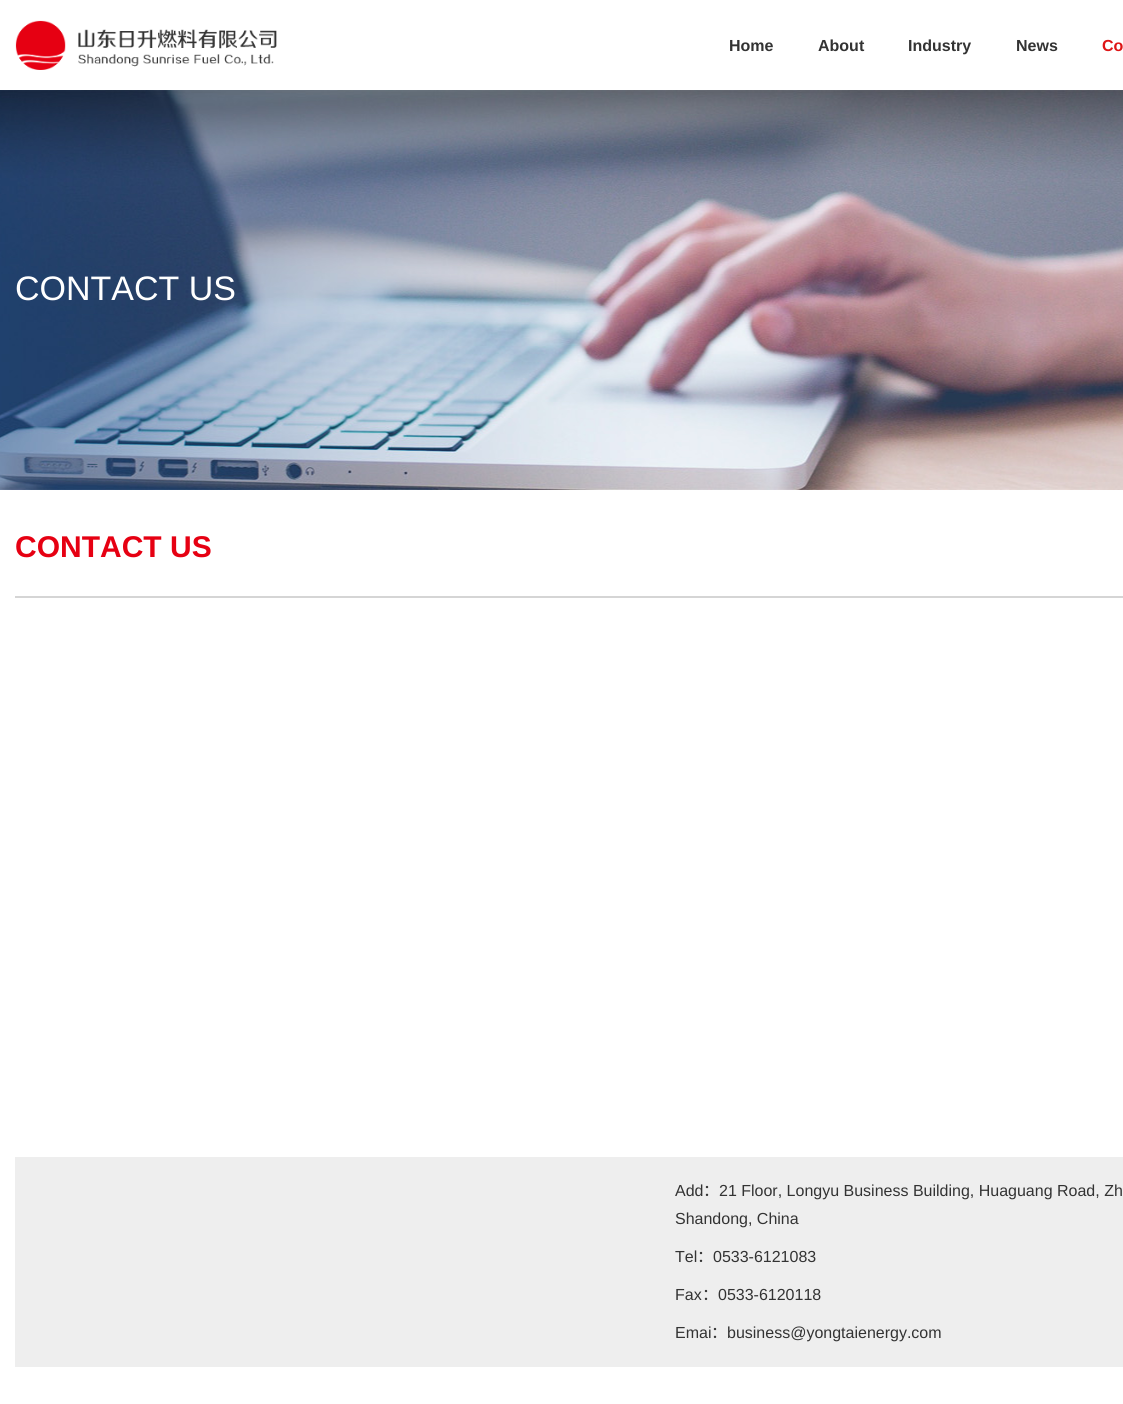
import math
import cairo

surface = cairo.ImageSurface(cairo.Format.RGB24, 1123, 1404)
ctx = cairo.Context(surface)
options = cairo.FontOptions()
options.set_hint_metrics(cairo.HintMetrics.OFF)
options.set_hint_style(cairo.HintStyle.NONE)
ctx.set_font_options(options)
ctx.set_miter_limit(4)


def ink(r, g, b):
    ctx.set_source_rgb(r / 255, g / 255, b / 255)


def write(x, y, s, family, size, color, bold=False, italic=False):
    ctx.select_font_face(family, cairo.FontSlant.ITALIC if italic else cairo.FontSlant.NORMAL, cairo.FontWeight.BOLD if bold else cairo.FontWeight.NORMAL)
    ctx.set_font_size(size)
    ink(*color)
    ctx.move_to(x, y)
    ctx.show_text(s)


def block(x, y, w, h, *color):
    ink(*color)
    ctx.rectangle(x, y, w, h)
    ctx.fill()


def paste(path, x, y, w, h):
    ctx.save()
    ctx.set_source_surface(cairo.ImageSurface.create_from_png(path), x, y)
    ctx.rectangle(x, y, w, h)
    ctx.fill()
    ctx.restore()


s1 = dict(family="Liberation Sans", size=16, color=(51, 51, 51), bold=True)
s2 = dict(family="Liberation Sans", size=16, color=(222, 21, 22), bold=True)
s3 = dict(family="Liberation Sans", size=34, color=(255, 255, 255))
s4 = dict(family="Liberation Sans", size=30, color=(230, 0, 18), bold=True)
s5 = dict(family="Liberation Sans", size=16, color=(51, 51, 51))
s6 = dict(family="Noto Sans CJK SC", size=16, color=(51, 51, 51))

ink(255, 255, 255)
ctx.paint()
paste("pic1.png", 15, 20, 262, 50)
write(729, 51, "Home", **s1)
write(818, 51, "About", **s1)
write(908, 51, "Industry", **s1)
write(1016, 51, "News", **s1)
write(1102, 51, "Co", **s2)
paste("pic2.png", 0, 90, 1123, 400)
write(15, 300, "CONTACT US", **s3)
write(15, 557, "CONTACT US", **s4)
block(15, 596, 1108, 2, 213, 213, 213)
block(15, 1157, 1108, 210, 238, 238, 238)
write(675, 1196, "Add", **s5)
write(703, 1196, "：", **s6)
write(719, 1196, "21 Floor, Longyu Business Building, Huaguang Road, Zh", **s5)
write(675, 1224, "Shandong, China", **s5)
write(675, 1262, "Tel", **s5)
write(697, 1262, "：", **s6)
write(713, 1262, "0533-6121083", **s5)
write(675, 1300, "Fax", **s5)
write(702, 1300, "：", **s6)
write(718, 1300, "0533-6120118", **s5)
write(675, 1338, "Emai", **s5)
write(711, 1338, "：", **s6)
write(727, 1338, "business@yongtaienergy.com", **s5)
surface.write_to_png("screenshot.png")
